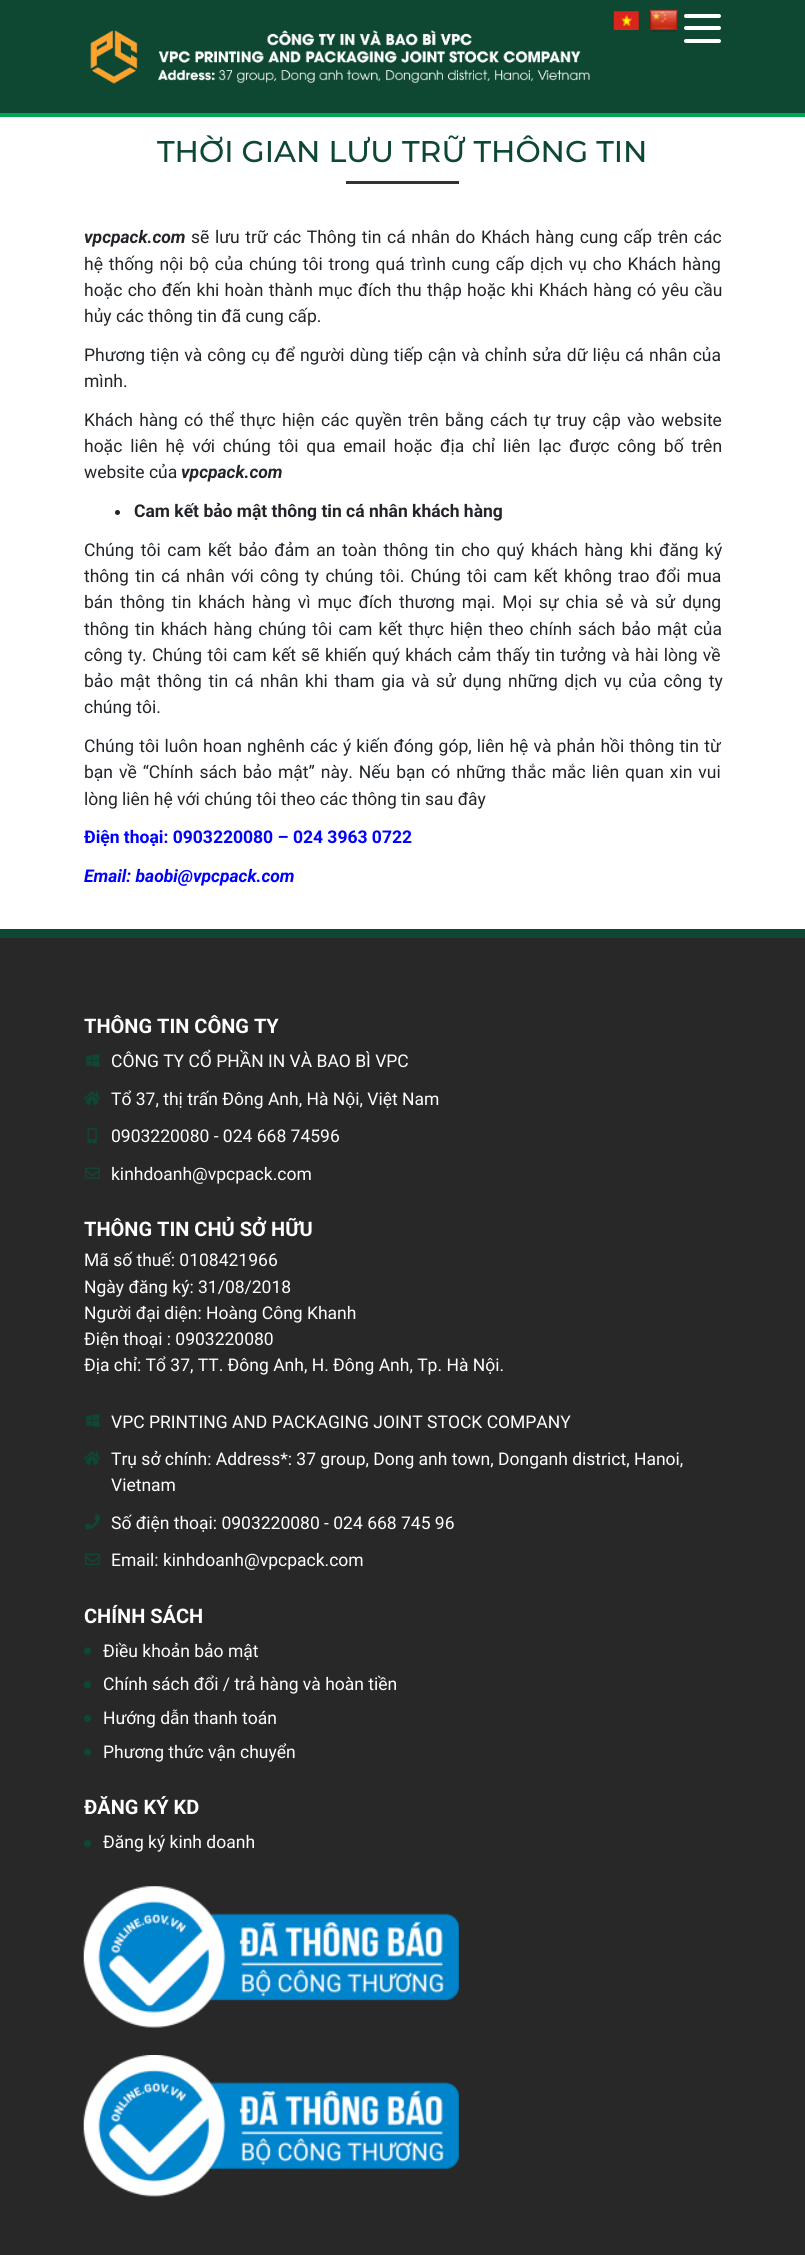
import math
import cairo

surface = cairo.ImageSurface(cairo.Format.RGB24, 805, 2255)
ctx = cairo.Context(surface)
options = cairo.FontOptions()
options.set_hint_metrics(cairo.HintMetrics.OFF)
options.set_hint_style(cairo.HintStyle.NONE)
ctx.set_font_options(options)
ctx.set_miter_limit(4)


def ink(r, g, b):
    ctx.set_source_rgb(r / 255, g / 255, b / 255)


def write(x, y, s, family, size, color, bold=False, italic=False):
    ctx.select_font_face(family, cairo.FontSlant.ITALIC if italic else cairo.FontSlant.NORMAL, cairo.FontWeight.BOLD if bold else cairo.FontWeight.NORMAL)
    ctx.set_font_size(size)
    ink(*color)
    ctx.move_to(x, y)
    ctx.show_text(s)


def write_spaced(x, y, s, letter, word):
    ctx.move_to(x, y)
    for ch in s:
        ctx.show_text(ch)
        ctx.rel_move_to(letter + word * (ch == ' '), 0)


def block(x, y, w, h, *color):
    ink(*color)
    ctx.rectangle(x, y, w, h)
    ctx.fill()


def round_path(x, y, w, h, r):
    ctx.new_sub_path()
    for i, (u, v) in enumerate([(x + w - r, y + h - r), (x + r, y + h - r), (x + r, y + r), (x + w - r, y + r)]):
        ctx.arc(u, v, r, i * math.pi / 2, (i + 1) * math.pi / 2)
    ctx.close_path()


def paste(path, x, y, w, h):
    ctx.save()
    ctx.set_source_surface(cairo.ImageSurface.create_from_png(path), x, y)
    ctx.rectangle(x, y, w, h)
    ctx.fill()
    ctx.restore()


s1 = dict(family="Montserrat Medium", size=30, color=(14, 71, 50))
s2 = dict(family="Roboto", size=17.5, color=(33, 37, 41), bold=True, italic=True)
s3 = dict(family="Roboto", size=17.5, color=(33, 37, 41))
s4 = dict(family="Roboto", size=17.5, color=(33, 37, 41), bold=True)
s5 = dict(family="Roboto", size=17.5, color=(0, 0, 255), bold=True)
s6 = dict(family="Roboto", size=17.5, color=(0, 0, 255), bold=True, italic=True)
s7 = dict(family="Roboto", size=20, color=(255, 255, 255), bold=True)
s8 = dict(family="Roboto", size=17.5, color=(255, 255, 255))

ink(255, 255, 255)
ctx.paint()
block(0, 0, 805, 113, 14, 71, 50)
block(0, 113, 805, 4, 0, 165, 83)
paste("pic1.png", 613, 11, 26, 19)
paste("pic2.png", 649, 9, 29, 23)
paste("pic3.png", 90, 30, 500, 54)
ink(255, 255, 255)
round_path(684, 39, 37, 4, 2)
ctx.fill()
round_path(684, 14, 37, 4, 2)
ctx.fill()
round_path(684, 26, 37, 4, 2)
ctx.fill()
write(157, 162, "THỜI GIAN LƯU TRỮ THÔNG TIN", **s1)
block(346, 181, 113, 3, 51, 51, 51)
write(84, 243, "vpcpack.com", **s2)
ctx.select_font_face("Roboto")
write_spaced(191, 243, "sẽ lưu trữ các Thông tin cá nhân do Khách hàng cung cấp trên các", 0, 1.25)
write_spaced(84, 270, "hệ thống nội bộ của chúng tôi trong quá trình cung cấp dịch vụ cho Khách hàng", 0, 1.5)
write_spaced(84, 296, "hoặc cho đến khi hoàn thành mục đích thu thập hoặc khi Khách hàng có yêu cầu", 0, 1)
write(84, 322, "hủy các thông tin đã cung cấp.", **s3)
write_spaced(84, 361, "Phương tiện và công cụ để người dùng tiếp cận và chỉnh sửa dữ liệu cá nhân của", 0, 0.8)
write(84, 387, "mình.", **s3)
write_spaced(84, 426, "Khách hàng có thể thực hiện các quyền trên bằng cách tự truy cập vào website", 0, 1.9)
write_spaced(84, 452, "hoặc liên hệ với chúng tôi qua email hoặc địa chỉ liên lạc được công bố trên", 0, 3.5)
write(84, 478, "website của", **s3)
write(181, 478, "vpcpack.com", **s2)
ctx.new_path()
ctx.arc(117.5, 512.5, 2.5, 0, 2 * math.pi)
ctx.fill()
write(134, 517, "Cam kết bảo mật thông tin cá nhân khách hàng", **s4)
ctx.select_font_face("Roboto")
write_spaced(84, 556, "Chúng tôi cam kết bảo đảm an toàn thông tin cho quý khách hàng khi đăng ký", 0, 2.25)
write_spaced(84, 582, "thông tin cá nhân với công ty chúng tôi. Chúng tôi cam kết không trao đổi mua", 0, 2)
write_spaced(84, 608, "bán thông tin khách hàng vì mục đích thương mại. Mọi sự chia sẻ và sử dụng", 0, 2.6)
write_spaced(84, 635, "thông tin khách hàng chúng tôi cam kết thực hiện theo chính sách bảo mật của", 0, 1.75)
write_spaced(84, 661, "công ty. Chúng tôi cam kết sẽ khiến quý khách cảm thấy tin tưởng và hài lòng về", 0, 1)
write_spaced(84, 687, "bảo mật thông tin cá nhân khi tham gia và sử dụng những dịch vụ của công ty", 0, 2.25)
write(84, 713, "chúng tôi.", **s3)
write_spaced(84, 752, "Chúng tôi luôn hoan nghênh các ý kiến đóng góp, liên hệ và phản hồi thông tin từ", 0, 0.8)
write_spaced(84, 778, "bạn về “Chính sách bảo mật” này. Nếu bạn có những thắc mắc liên quan xin vui", 0, 1.6)
write(84, 805, "lòng liên hệ với chúng tôi theo các thông tin sau đây", **s3)
write(84, 843, "Điện thoại: 0903220080 – 024 3963 0722", **s5)
write(84, 882, "Email: baobi@vpcpack.com", **s6)
block(0, 938, 805, 1317, 40, 40, 40)
block(0, 929, 805, 9, 14, 71, 50)
write(84, 1033, "THÔNG TIN CÔNG TY", **s7)
paste("pic4.png", 86, 1054, 14, 13)
write(111, 1067, "CÔNG TY CỔ PHẦN IN VÀ BAO BÌ VPC", **s8)
paste("pic5.png", 84, 1091, 17, 14)
write(111, 1105, "Tổ 37, thị trấn Đông Anh, Hà Nội, Việt Nam", **s8)
paste("pic6.png", 87, 1128, 10, 16)
write(111, 1142, "0903220080 - 024 668 74596", **s8)
paste("pic7.png", 85, 1167, 15, 12)
write(111, 1180, "kinhdoanh@vpcpack.com", **s8)
write(84, 1236, "THÔNG TIN CHỦ SỞ HỮU", **s7)
write(84, 1266, "Mã số thuế: 0108421966", **s8)
write(84, 1293, "Ngày đăng ký: 31/08/2018", **s8)
write(84, 1319, "Người đại diện: Hoàng Công Khanh", **s8)
write(84, 1345, "Điện thoại : 0903220080", **s8)
write(84, 1371, "Địa chỉ: Tổ 37, TT. Đông Anh, H. Đông Anh, Tp. Hà Nội.", **s8)
paste("pic4.png", 86, 1414, 14, 13)
write(111, 1428, "VPC PRINTING AND PACKAGING JOINT STOCK COMPANY", **s8)
paste("pic5.png", 84, 1451, 17, 14)
write(111, 1465, "Trụ sở chính: Address*: 37 group, Dong anh town, Donganh district, Hanoi,", **s8)
write(111, 1491, "Vietnam", **s8)
paste("pic8.png", 85, 1514, 15, 16)
write(111, 1529, "Số điện thoại: 0903220080 - 024 668 745 96", **s8)
paste("pic9.png", 85, 1553, 15, 12)
write(111, 1566, "Email: kinhdoanh@vpcpack.com", **s8)
write(84, 1623, "CHÍNH SÁCH", **s7)
paste("pic10.png", 84, 1647, 7, 8)
write(103, 1657, "Điều khoản bảo mật", **s8)
paste("pic11.png", 84, 1681, 7, 8)
write(103, 1690, "Chính sách đổi / trả hàng và hoàn tiền", **s8)
paste("pic12.png", 84, 1714, 7, 8)
write(103, 1724, "Hướng dẫn thanh toán", **s8)
paste("pic13.png", 84, 1748, 7, 8)
write(103, 1758, "Phương thức vận chuyển", **s8)
write(84, 1814, "ĐĂNG KÝ KD", **s7)
paste("pic12.png", 84, 1839, 7, 8)
write(103, 1848, "Đăng ký kinh doanh", **s8)
paste("pic14.png", 83, 1886, 376, 142)
paste("pic15.png", 83, 2055, 376, 142)
surface.write_to_png("screenshot.png")
